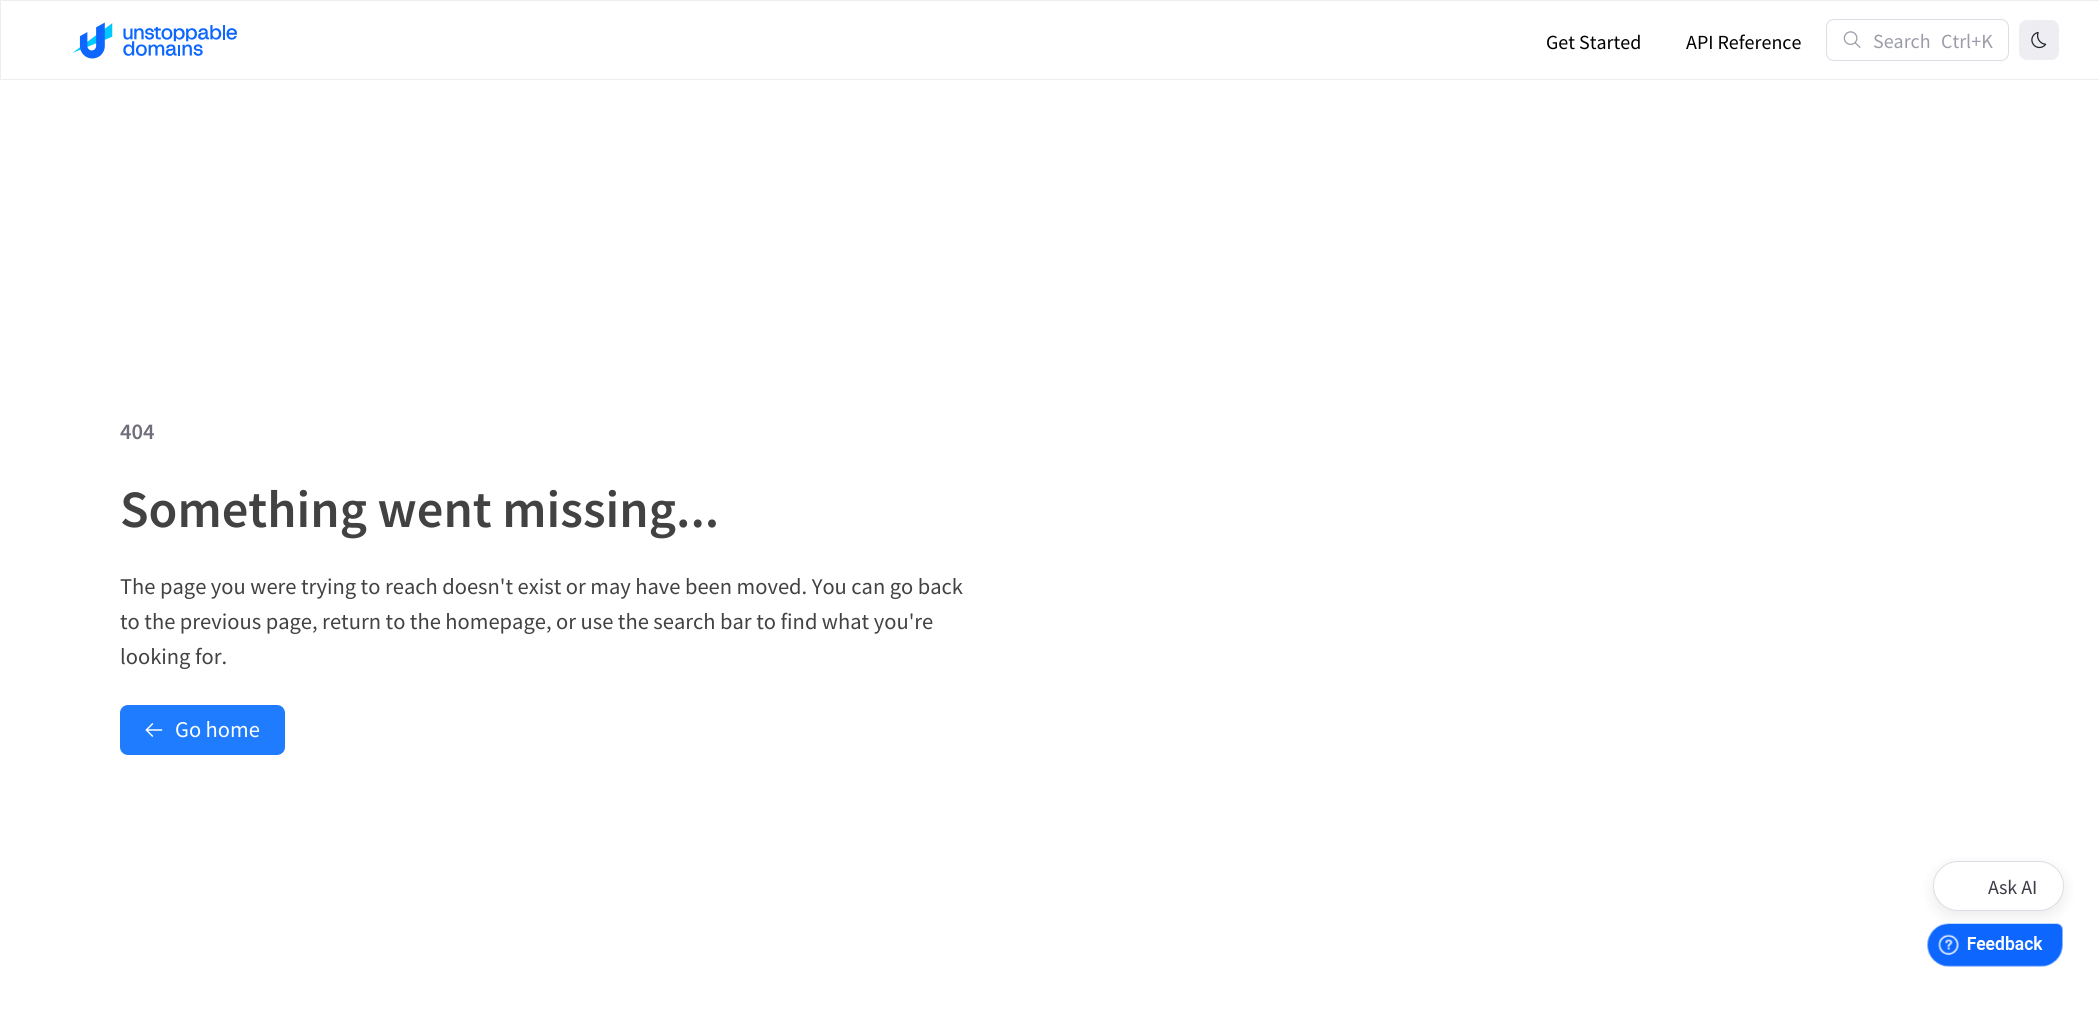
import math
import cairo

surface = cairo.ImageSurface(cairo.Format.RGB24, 2099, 1011)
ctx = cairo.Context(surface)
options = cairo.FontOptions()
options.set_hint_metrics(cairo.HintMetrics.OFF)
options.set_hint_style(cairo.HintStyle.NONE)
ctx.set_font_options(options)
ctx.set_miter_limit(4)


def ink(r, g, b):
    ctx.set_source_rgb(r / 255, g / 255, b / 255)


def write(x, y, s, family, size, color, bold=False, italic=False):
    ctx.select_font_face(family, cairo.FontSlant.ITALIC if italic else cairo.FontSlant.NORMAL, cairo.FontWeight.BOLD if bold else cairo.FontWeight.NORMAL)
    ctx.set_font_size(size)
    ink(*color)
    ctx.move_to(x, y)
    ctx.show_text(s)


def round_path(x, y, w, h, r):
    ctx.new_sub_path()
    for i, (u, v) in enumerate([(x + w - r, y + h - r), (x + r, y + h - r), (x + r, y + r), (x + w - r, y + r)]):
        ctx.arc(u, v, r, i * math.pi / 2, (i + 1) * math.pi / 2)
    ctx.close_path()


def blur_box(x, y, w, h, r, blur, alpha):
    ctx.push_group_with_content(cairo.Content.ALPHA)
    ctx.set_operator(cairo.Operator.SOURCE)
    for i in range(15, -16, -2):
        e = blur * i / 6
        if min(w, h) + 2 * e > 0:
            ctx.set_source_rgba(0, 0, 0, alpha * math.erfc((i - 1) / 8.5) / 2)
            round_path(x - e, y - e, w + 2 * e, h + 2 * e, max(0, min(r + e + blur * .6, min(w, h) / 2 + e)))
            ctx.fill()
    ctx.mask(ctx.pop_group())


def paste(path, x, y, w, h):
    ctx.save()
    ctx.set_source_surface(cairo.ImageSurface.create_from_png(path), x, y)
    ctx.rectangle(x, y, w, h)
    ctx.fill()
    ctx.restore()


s1 = dict(family="Source Sans Pro", size=20, color=(0, 0, 0))
s2 = dict(family="Source Sans Pro", size=20, color=(155, 156, 168))
s3 = dict(family="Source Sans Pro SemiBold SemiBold", size=22.5, color=(110, 111, 122))
s4 = dict(family="Source Sans Pro SemiBold SemiBold", size=52.5, color=(66, 66, 66))
s5 = dict(family="Source Sans Pro", size=22.5, color=(66, 66, 66))
s6 = dict(family="Source Sans Pro", size=22.5, color=(255, 255, 255))
s7 = dict(family="Source Sans Pro", size=20, color=(59, 60, 69))

ink(255, 255, 255)
ctx.paint()
ctx.rectangle(0.5, 0.5, 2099, 79)
ink(237, 237, 242)
ctx.set_line_width(1)
ctx.stroke()
paste("pic1.png", 72, 22, 165, 37)
write(1546, 49, "Get Started", **s1)
write(1686, 49, "API Reference", **s1)
round_path(1826.5, 19.5, 182, 41, 7.5)
ink(220, 221, 229)
ctx.stroke()
paste("pic2.png", 1843, 31, 18, 17)
write(1873, 48, "Search", **s2)
write(1941, 48, "Ctrl+K", **s2)
ink(237, 237, 242)
round_path(2019, 20, 40, 40, 8)
ctx.fill()
paste("pic3.png", 2031, 31, 16, 18)
write(120, 439, "404", **s3)
write(120, 527, "Something went missing...", **s4)
write(120, 594, "The page you were trying to reach doesn't exist or may have been moved. You can go back", **s5)
write(120, 629, "to the previous page, return to the homepage, or use the search bar to find what you're", **s5)
write(120, 664, "looking for.", **s5)
ink(31, 124, 255)
round_path(120, 705, 165, 50, 8)
ctx.fill()
paste("pic4.png", 145, 723, 18, 14)
write(175, 737, "Go home", **s6)
ink(0, 0, 0)
blur_box(1933, 866, 131, 50, 25, 7.5, 0.08)
ink(255, 255, 255)
round_path(1933.5, 861.5, 130, 49, 24.5)
ctx.fill_preserve()
ink(220, 221, 229)
ctx.stroke()
write(1988, 894, "Ask AI", **s7)
paste("pic5.png", 1927, 923, 136, 44)
surface.write_to_png("screenshot.png")
